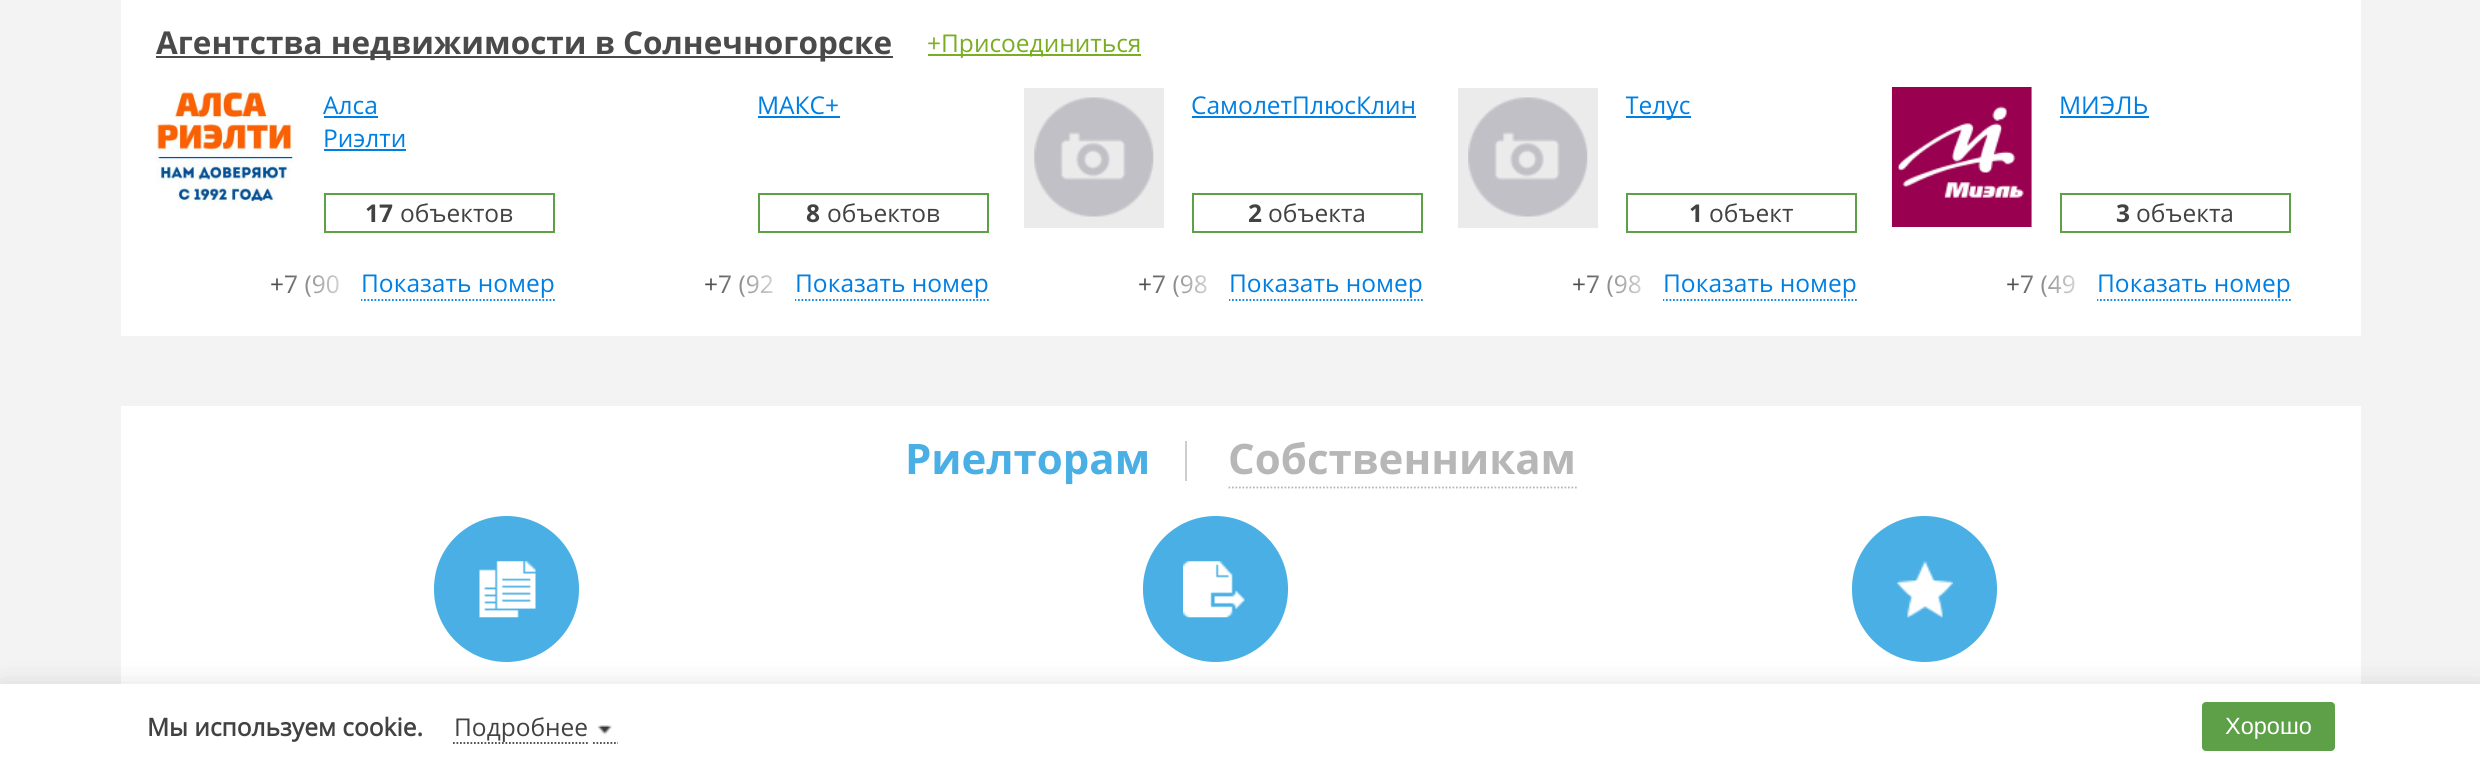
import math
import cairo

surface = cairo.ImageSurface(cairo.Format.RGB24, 2480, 768)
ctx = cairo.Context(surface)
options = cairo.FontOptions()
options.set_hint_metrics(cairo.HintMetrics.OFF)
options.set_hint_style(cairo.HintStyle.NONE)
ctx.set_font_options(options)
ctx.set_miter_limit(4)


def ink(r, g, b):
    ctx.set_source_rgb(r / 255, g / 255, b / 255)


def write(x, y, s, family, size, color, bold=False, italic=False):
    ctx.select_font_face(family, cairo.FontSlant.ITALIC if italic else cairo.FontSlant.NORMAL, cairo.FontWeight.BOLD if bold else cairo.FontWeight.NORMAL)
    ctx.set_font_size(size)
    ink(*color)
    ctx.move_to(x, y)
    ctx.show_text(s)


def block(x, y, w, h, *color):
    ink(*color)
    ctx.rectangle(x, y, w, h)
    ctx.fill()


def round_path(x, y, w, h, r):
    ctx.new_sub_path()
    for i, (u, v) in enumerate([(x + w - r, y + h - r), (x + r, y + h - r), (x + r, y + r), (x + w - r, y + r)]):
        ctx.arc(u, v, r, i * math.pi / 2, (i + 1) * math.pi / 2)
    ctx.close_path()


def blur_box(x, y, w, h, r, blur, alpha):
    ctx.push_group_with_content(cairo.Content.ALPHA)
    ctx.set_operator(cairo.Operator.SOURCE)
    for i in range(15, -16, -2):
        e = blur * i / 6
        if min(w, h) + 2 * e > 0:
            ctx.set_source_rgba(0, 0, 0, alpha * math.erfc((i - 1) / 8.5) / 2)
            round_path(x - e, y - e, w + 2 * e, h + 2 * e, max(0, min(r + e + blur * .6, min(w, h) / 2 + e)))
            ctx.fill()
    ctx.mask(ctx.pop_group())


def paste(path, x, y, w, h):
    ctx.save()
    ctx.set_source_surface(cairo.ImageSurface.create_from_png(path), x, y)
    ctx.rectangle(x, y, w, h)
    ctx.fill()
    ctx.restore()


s1 = dict(family="Open Sans", size=31.5, color=(74, 74, 74), bold=True)
s2 = dict(family="Open Sans", size=24.5, color=(121, 174, 35))
s3 = dict(family="Open Sans", size=24.5, color=(0, 127, 227))
s4 = dict(family="Open Sans", size=24.5, color=(66, 66, 66), bold=True)
s5 = dict(family="Open Sans", size=24.5, color=(66, 66, 66))
s6 = dict(family="Open Sans", size=42, color=(73, 175, 228), bold=True)
s7 = dict(family="Open Sans", size=42, color=(183, 183, 183), bold=True)
s8 = dict(family="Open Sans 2", size=24.5, color=(66, 66, 66), bold=True)
s9 = dict(family="Liberation Sans", size=23.5, color=(255, 255, 255))

ink(243, 243, 243)
ctx.paint()
block(121, 0, 2240, 336, 255, 255, 255)
block(156, 56, 737, 2, 74, 74, 74)
write(156, 54, "Агентства недвижимости в Солнечногорске", **s1)
block(928, 54, 213, 2, 121, 174, 35)
write(927, 52, "+Присоединиться", **s2)
paste("pic1.png", 156, 87, 139, 120)
write(323, 114, "Алса", **s3)
block(324, 116, 54, 2, 0, 127, 227)
write(323, 147, "Риэлти", **s3)
block(324, 149, 82, 2, 0, 127, 227)
ctx.rectangle(325, 194, 229, 38)
ink(93, 160, 72)
ctx.stroke()
write(365, 222, "17", **s4)
write(400, 222, "объектов", **s5)
write(270, 293, "+7 (90", **s5)
ctx.new_path()
ctx.move_to(360.5, 300)
ctx.line_to(555, 300)
ink(0, 127, 227)
ctx.set_line_width(1.8)
ctx.set_dash([1.75, 1.75])
ctx.stroke()
gradient = cairo.LinearGradient(270, 284, 361, 284)
gradient.add_color_stop_rgba(0, 1, 1, 1, 0)
gradient.add_color_stop_rgba(1, 1, 1, 1, 1)
ctx.set_source(gradient)
ctx.rectangle(272, 275, 89, 26)
ctx.fill()
write(361, 292, "Показать номер", **s3)
write(757, 114, "МАКС+", **s3)
block(758, 116, 82, 2, 0, 127, 227)
ctx.rectangle(759, 194, 229, 38)
ink(93, 160, 72)
ctx.set_line_width(2)
ctx.set_dash([])
ctx.stroke()
write(806, 222, "8", **s4)
write(827, 222, "объектов", **s5)
write(704, 293, "+7 (92", **s5)
ctx.new_path()
ctx.move_to(794.5, 300)
ctx.line_to(989, 300)
ink(0, 127, 227)
ctx.set_line_width(1.8)
ctx.set_dash([1.75, 1.75])
ctx.stroke()
gradient = cairo.LinearGradient(704, 284, 795, 284)
gradient.add_color_stop_rgba(0, 1, 1, 1, 0)
gradient.add_color_stop_rgba(1, 1, 1, 1, 1)
ctx.set_source(gradient)
ctx.rectangle(706, 275, 89, 26)
ctx.fill()
write(795, 292, "Показать номер", **s3)
block(1024, 88, 140, 140, 235, 235, 235)
paste("pic2.png", 1034, 97, 120, 120)
write(1191, 114, "СамолетПлюсКлин", **s3)
block(1192, 116, 224, 2, 0, 127, 227)
ctx.rectangle(1193, 194, 229, 38)
ink(93, 160, 72)
ctx.set_line_width(2)
ctx.set_dash([])
ctx.stroke()
write(1248, 222, "2", **s4)
write(1268, 222, "объекта", **s5)
write(1138, 293, "+7 (98", **s5)
ctx.new_path()
ctx.move_to(1228.5, 300)
ctx.line_to(1423, 300)
ink(0, 127, 227)
ctx.set_line_width(1.8)
ctx.set_dash([1.75, 1.75])
ctx.stroke()
gradient = cairo.LinearGradient(1138, 284, 1229, 284)
gradient.add_color_stop_rgba(0, 1, 1, 1, 0)
gradient.add_color_stop_rgba(1, 1, 1, 1, 1)
ctx.set_source(gradient)
ctx.rectangle(1140, 275, 89, 26)
ctx.fill()
write(1229, 292, "Показать номер", **s3)
block(1458, 88, 140, 140, 235, 235, 235)
paste("pic3.png", 1468, 97, 120, 120)
block(1626, 116, 65, 2, 0, 127, 227)
ctx.save()
ctx.rectangle(1626, 88, 231, 105)
ctx.clip()
write(1625, 114, "Телус", **s3)
ctx.restore()
ctx.rectangle(1627, 194, 229, 38)
ink(93, 160, 72)
ctx.set_line_width(2)
ctx.set_dash([])
ctx.stroke()
write(1689, 222, "1", **s4)
write(1709, 222, "объект", **s5)
write(1572, 293, "+7 (98", **s5)
ctx.new_path()
ctx.move_to(1662.5, 300)
ctx.line_to(1857, 300)
ink(0, 127, 227)
ctx.set_line_width(1.8)
ctx.set_dash([1.75, 1.75])
ctx.stroke()
gradient = cairo.LinearGradient(1572, 284, 1663, 284)
gradient.add_color_stop_rgba(0, 1, 1, 1, 0)
gradient.add_color_stop_rgba(1, 1, 1, 1, 1)
ctx.set_source(gradient)
ctx.rectangle(1574, 275, 89, 26)
ctx.fill()
write(1663, 292, "Показать номер", **s3)
paste("pic4.png", 1891, 87, 141, 140)
write(2059, 114, "МИЭЛЬ", **s3)
block(2060, 116, 89, 2, 0, 127, 227)
ctx.rectangle(2061, 194, 229, 38)
ink(93, 160, 72)
ctx.set_line_width(2)
ctx.set_dash([])
ctx.stroke()
write(2116, 222, "3", **s4)
write(2136, 222, "объекта", **s5)
write(2006, 293, "+7 (49", **s5)
ctx.new_path()
ctx.move_to(2096.5, 300)
ctx.line_to(2291, 300)
ink(0, 127, 227)
ctx.set_line_width(1.8)
ctx.set_dash([1.75, 1.75])
ctx.stroke()
gradient = cairo.LinearGradient(2006, 284, 2097, 284)
gradient.add_color_stop_rgba(0, 1, 1, 1, 0)
gradient.add_color_stop_rgba(1, 1, 1, 1, 1)
ctx.set_source(gradient)
ctx.rectangle(2008, 275, 89, 26)
ctx.fill()
write(2097, 292, "Показать номер", **s3)
block(121, 406, 2240, 278, 255, 255, 255)
block(1185, 441, 2, 40, 205, 205, 205)
write(905, 474, "Риелторам", **s6)
write(1228, 474, "Собственникам", **s7)
ctx.new_path()
ctx.move_to(1228.5, 487.5)
ctx.line_to(1577, 487.5)
ctx.stroke()
ink(73, 175, 228)
round_path(434, 516, 145, 146, 72.5)
ctx.fill()
paste("pic5.png", 479, 561, 57, 57)
round_path(1143, 516, 145, 146, 72.5)
ctx.fill()
paste("pic6.png", 1183, 561, 62, 57)
round_path(1852, 516, 145, 146, 72.5)
ctx.fill()
paste("pic7.png", 1897, 561, 56, 57)
ink(36, 38, 41)
blur_box(0, 688, 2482, 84, 0, 14, 0.16)
block(0, 684, 2480, 84, 255, 255, 255)
write(147, 736, "Мы используем cookie.", **s8)
ctx.new_path()
ctx.move_to(453, 743)
ctx.line_to(588, 743)
ctx.stroke()
ctx.new_path()
ctx.move_to(593, 743)
ctx.line_to(618, 743)
ctx.stroke()
write(454, 736, "Подробнее", **s5)
paste("pic8.png", 597, 725, 15, 10)
ink(93, 160, 72)
round_path(2202, 702, 133, 49, 4)
ctx.fill()
write(2225, 734, "Хорошо", **s9)
surface.write_to_png("screenshot.png")
